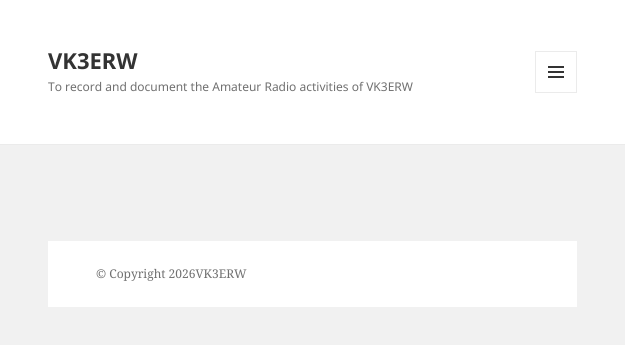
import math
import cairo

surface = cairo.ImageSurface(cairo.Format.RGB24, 625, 345)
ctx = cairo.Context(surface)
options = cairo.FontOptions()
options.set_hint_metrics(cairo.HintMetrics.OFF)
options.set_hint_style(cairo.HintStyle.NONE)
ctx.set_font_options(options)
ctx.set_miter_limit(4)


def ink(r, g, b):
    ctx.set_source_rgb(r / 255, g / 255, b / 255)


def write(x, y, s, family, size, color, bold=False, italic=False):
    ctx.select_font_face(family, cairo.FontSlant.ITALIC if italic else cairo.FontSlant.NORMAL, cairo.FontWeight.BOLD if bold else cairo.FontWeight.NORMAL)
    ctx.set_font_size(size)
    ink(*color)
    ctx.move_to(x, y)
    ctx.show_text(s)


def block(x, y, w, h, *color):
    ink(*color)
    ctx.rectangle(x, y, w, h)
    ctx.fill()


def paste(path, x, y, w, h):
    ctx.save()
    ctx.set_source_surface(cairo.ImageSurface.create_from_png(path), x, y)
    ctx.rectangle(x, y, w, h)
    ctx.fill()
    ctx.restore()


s1 = dict(family="Noto Sans", size=22, color=(51, 51, 51), bold=True)
s2 = dict(family="Noto Sans", size=12, color=(112, 112, 112))
s3 = dict(family="Noto Serif", size=12, color=(112, 112, 112))

ink(241, 241, 241)
ctx.paint()
block(0, 0, 625, 144, 255, 255, 255)
block(0, 144, 625, 1, 235, 235, 235)
write(48, 69, "VK3ERW", **s1)
ctx.rectangle(535.5, 51.5, 41, 41)
ink(235, 235, 235)
ctx.set_line_width(1)
ctx.stroke()
paste("pic1.png", 548, 66, 16, 12)
write(48, 91, "To record and document the Amateur Radio activities of VK3ERW", **s2)
block(48, 241, 529, 66, 255, 255, 255)
write(96, 278, "© Copyright 2026VK3ERW", **s3)
surface.write_to_png("screenshot.png")
